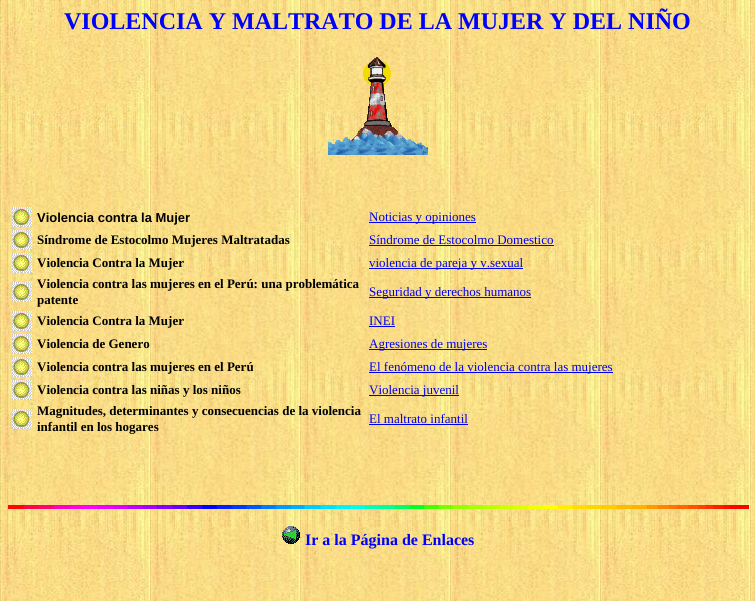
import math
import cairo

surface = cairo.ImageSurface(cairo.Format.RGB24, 755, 601)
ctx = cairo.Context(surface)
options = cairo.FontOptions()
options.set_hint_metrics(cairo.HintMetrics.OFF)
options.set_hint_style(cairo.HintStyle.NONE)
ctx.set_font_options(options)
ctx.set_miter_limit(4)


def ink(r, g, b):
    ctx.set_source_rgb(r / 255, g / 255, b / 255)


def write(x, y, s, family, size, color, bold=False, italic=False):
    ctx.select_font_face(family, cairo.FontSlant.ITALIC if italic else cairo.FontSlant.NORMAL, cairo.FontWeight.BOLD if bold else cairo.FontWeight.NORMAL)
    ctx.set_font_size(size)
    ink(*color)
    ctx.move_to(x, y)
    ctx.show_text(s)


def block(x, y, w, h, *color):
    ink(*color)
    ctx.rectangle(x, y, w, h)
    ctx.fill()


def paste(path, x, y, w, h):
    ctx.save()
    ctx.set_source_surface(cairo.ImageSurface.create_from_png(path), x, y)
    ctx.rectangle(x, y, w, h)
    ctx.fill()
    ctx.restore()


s1 = dict(family="Liberation Serif", size=24, color=(0, 0, 255), bold=True)
s2 = dict(family="Liberation Sans", size=13, color=(0, 0, 0), bold=True)
s3 = dict(family="Liberation Serif", size=13, color=(0, 0, 238))
s4 = dict(family="Liberation Serif", size=13, color=(0, 0, 0), bold=True)
s5 = dict(family="Liberation Serif", size=16, color=(0, 0, 255), bold=True)

ink(255, 255, 255)
ctx.paint()
paste("pic1.png", 0, 0, 755, 601)
write(64, 29, "VIOLENCIA Y MALTRATO DE LA MUJER Y DEL NIÑO", **s1)
paste("pic2.png", 328, 57, 100, 98)
paste("pic3.png", 12, 207, 20, 20)
write(37, 222, "Violencia contra la Mujer", **s2)
block(369, 222, 107, 1, 0, 0, 238)
write(369, 221, "Noticias y opiniones", **s3)
paste("pic3.png", 12, 230, 20, 20)
write(37, 244, "Síndrome de Estocolmo Mujeres Maltratadas", **s4)
write(369, 244, "Síndrome de Estocolmo Domestico", **s3)
block(369, 245, 185, 1, 0, 0, 238)
paste("pic3.png", 12, 253, 20, 20)
write(37, 267, "Violencia Contra la Mujer", **s4)
block(369, 268, 154, 1, 0, 0, 238)
write(369, 267, "violencia de pareja y v.sexual", **s3)
paste("pic3.png", 12, 282, 20, 20)
write(37, 288, "Violencia contra las mujeres en el Perú: una problemática", **s4)
write(37, 304, "patente", **s4)
block(369, 297, 162, 1, 0, 0, 238)
write(369, 296, "Seguridad y derechos humanos", **s3)
paste("pic3.png", 12, 311, 20, 20)
write(37, 325, "Violencia Contra la Mujer", **s4)
write(369, 325, "INEI", **s3)
block(369, 326, 26, 1, 0, 0, 238)
paste("pic3.png", 12, 334, 20, 20)
write(37, 348, "Violencia de Genero", **s4)
block(369, 349, 118, 1, 0, 0, 238)
write(369, 348, "Agresiones de mujeres", **s3)
paste("pic3.png", 12, 357, 20, 20)
write(37, 371, "Violencia contra las mujeres en el Perú", **s4)
block(369, 372, 244, 1, 0, 0, 238)
write(369, 371, "El fenómeno de la violencia contra las mujeres", **s3)
paste("pic3.png", 12, 380, 20, 20)
write(37, 394, "Violencia contra las niñas y los niños", **s4)
block(369, 395, 90, 1, 0, 0, 238)
write(369, 394, "Violencia juvenil", **s3)
paste("pic3.png", 12, 409, 20, 20)
write(37, 415, "Magnitudes, determinantes y consecuencias de la violencia", **s4)
write(37, 431, "infantil en los hogares", **s4)
write(369, 423, "El maltrato infantil", **s3)
block(369, 424, 99, 1, 0, 0, 238)
paste("pic4.png", 8, 505, 741, 4)
paste("pic5.png", 282, 526, 18, 18)
write(305, 545, "Ir a la Página de Enlaces", **s5)
surface.write_to_png("screenshot.png")
